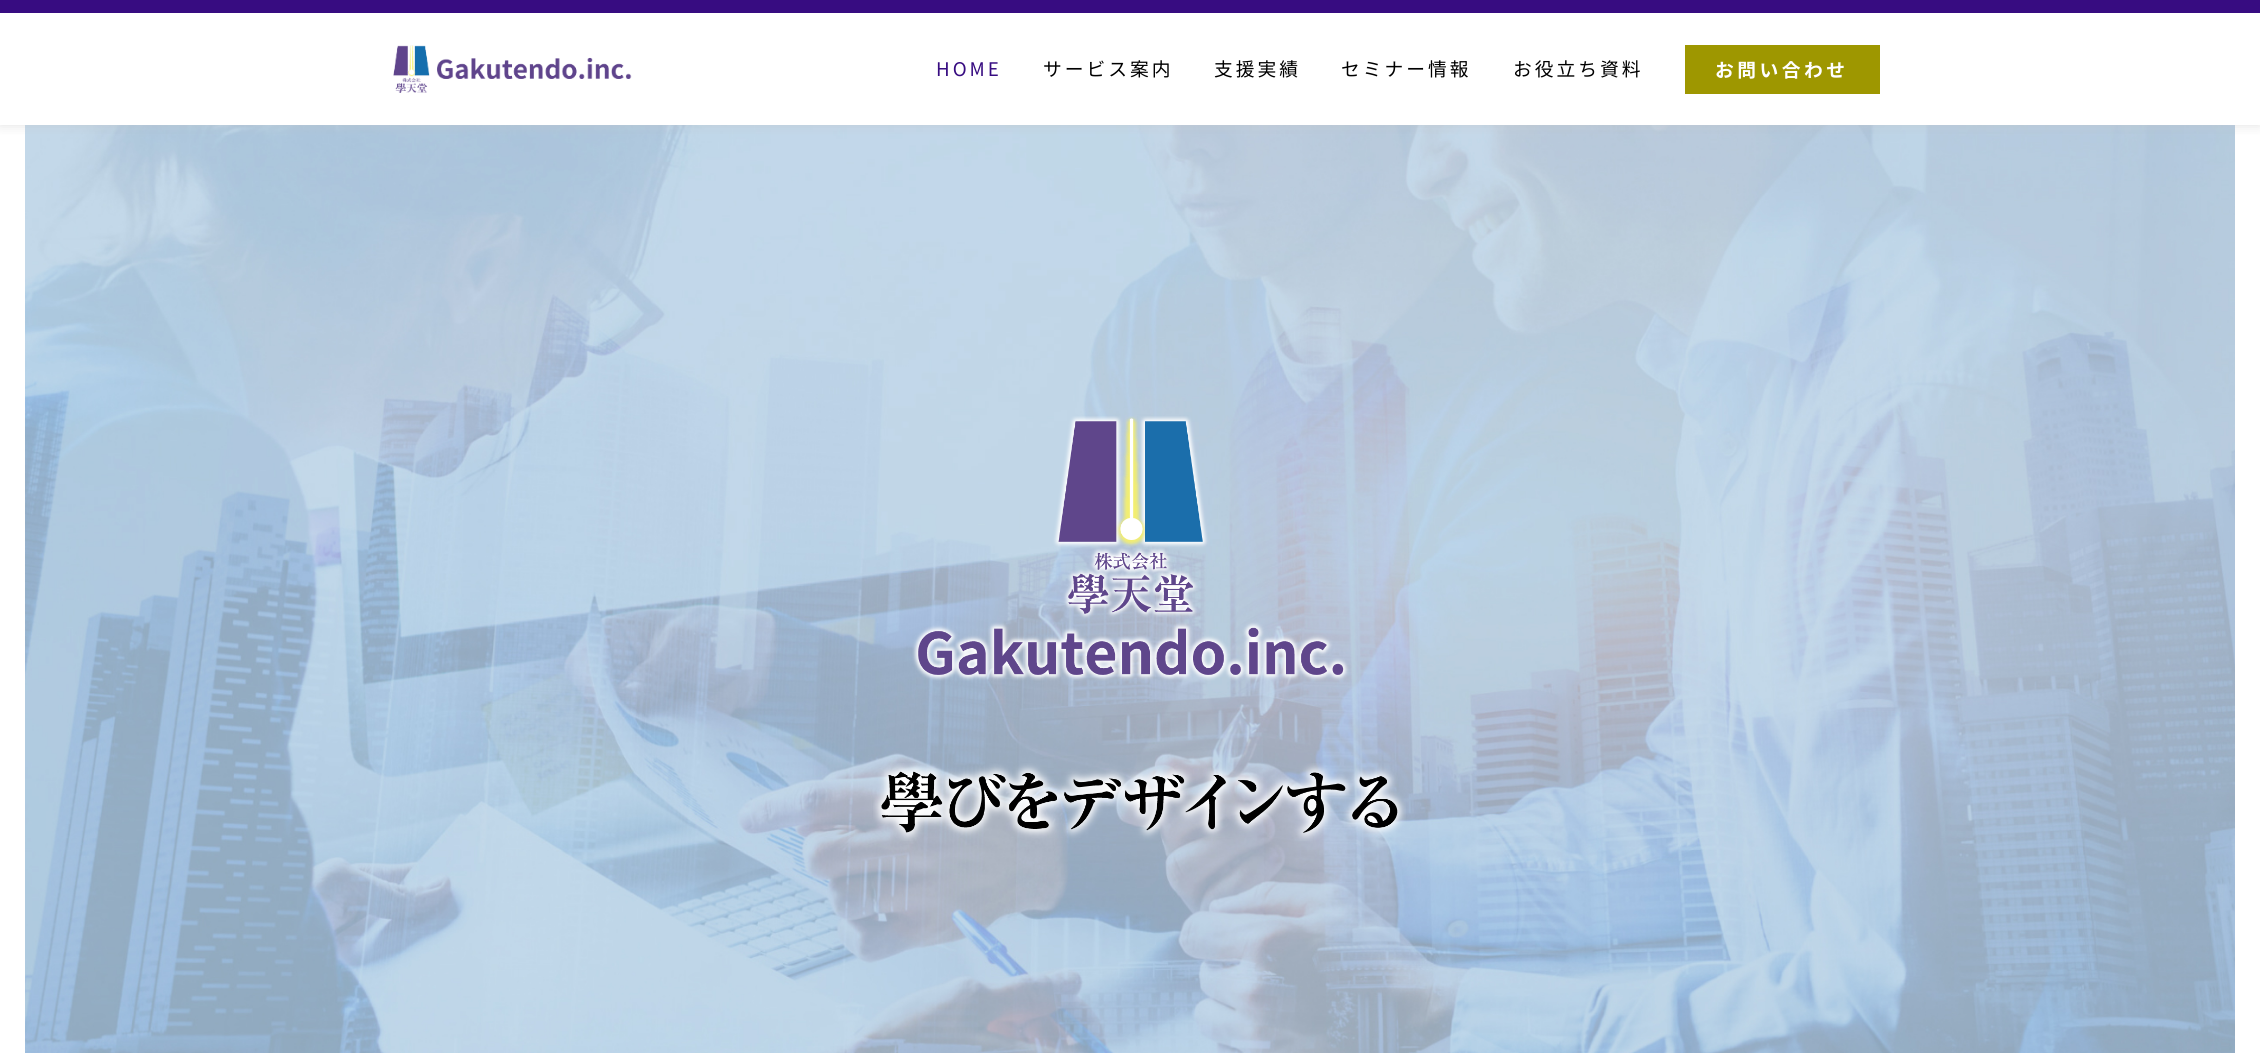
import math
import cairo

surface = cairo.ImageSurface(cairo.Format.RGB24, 2260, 1053)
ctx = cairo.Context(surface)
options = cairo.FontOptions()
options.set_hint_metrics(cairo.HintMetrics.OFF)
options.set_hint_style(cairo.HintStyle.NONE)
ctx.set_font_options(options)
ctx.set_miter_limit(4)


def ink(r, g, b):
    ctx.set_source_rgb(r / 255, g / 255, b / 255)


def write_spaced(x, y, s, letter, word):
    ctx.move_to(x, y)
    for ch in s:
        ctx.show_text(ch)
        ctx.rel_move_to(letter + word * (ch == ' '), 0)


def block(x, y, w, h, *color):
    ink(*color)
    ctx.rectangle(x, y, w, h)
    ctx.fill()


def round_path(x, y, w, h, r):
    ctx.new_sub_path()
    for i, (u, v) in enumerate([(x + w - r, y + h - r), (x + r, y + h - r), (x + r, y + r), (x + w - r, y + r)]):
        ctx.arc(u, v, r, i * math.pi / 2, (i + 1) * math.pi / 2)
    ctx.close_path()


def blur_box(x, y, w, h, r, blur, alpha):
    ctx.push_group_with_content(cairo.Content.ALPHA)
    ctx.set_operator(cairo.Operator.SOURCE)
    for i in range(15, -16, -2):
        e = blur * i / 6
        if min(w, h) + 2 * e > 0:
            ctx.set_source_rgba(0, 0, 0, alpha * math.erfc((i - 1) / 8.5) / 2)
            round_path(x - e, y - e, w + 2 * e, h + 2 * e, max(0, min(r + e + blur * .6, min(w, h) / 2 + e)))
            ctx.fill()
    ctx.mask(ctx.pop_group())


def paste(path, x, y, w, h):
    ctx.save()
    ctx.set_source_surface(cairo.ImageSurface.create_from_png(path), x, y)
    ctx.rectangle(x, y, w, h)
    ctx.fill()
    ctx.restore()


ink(255, 255, 255)
ctx.paint()
paste("pic2.png", 25, 125, 2210, 928)
ctx.save()
ctx.rectangle(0, 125, 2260, 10)
ctx.clip()
ink(197, 197, 197)
blur_box(0, 0, 2260, 125, 0, 6, 0.5)
ctx.restore()
block(0, 0, 2260, 13, 55, 12, 129)
paste("pic1.png", 393, 45, 239, 48)
ctx.select_font_face("Noto Sans JP")
ctx.set_font_size(18.75)
write_spaced(936, 76, "HOME", 3, 0)
ink(0, 0, 0)
write_spaced(1043, 76, "サービス案内", 3, 0)
write_spaced(1214, 76, "支援実績", 3, 0)
write_spaced(1341, 76, "セミナー情報", 3, 0)
write_spaced(1513, 76, "お役立ち資料", 3, 0)
block(1685, 45, 195, 49, 158, 151, 0)
ctx.select_font_face("Noto Sans JP", cairo.FontSlant.NORMAL, cairo.FontWeight.BOLD)
ink(255, 255, 255)
write_spaced(1715, 77, "お問い合わせ", 3.5, 0)
paste("pic3.png", 912, 416, 437, 265)
paste("pic4.png", 873, 763, 533, 78)
surface.write_to_png("screenshot.png")
